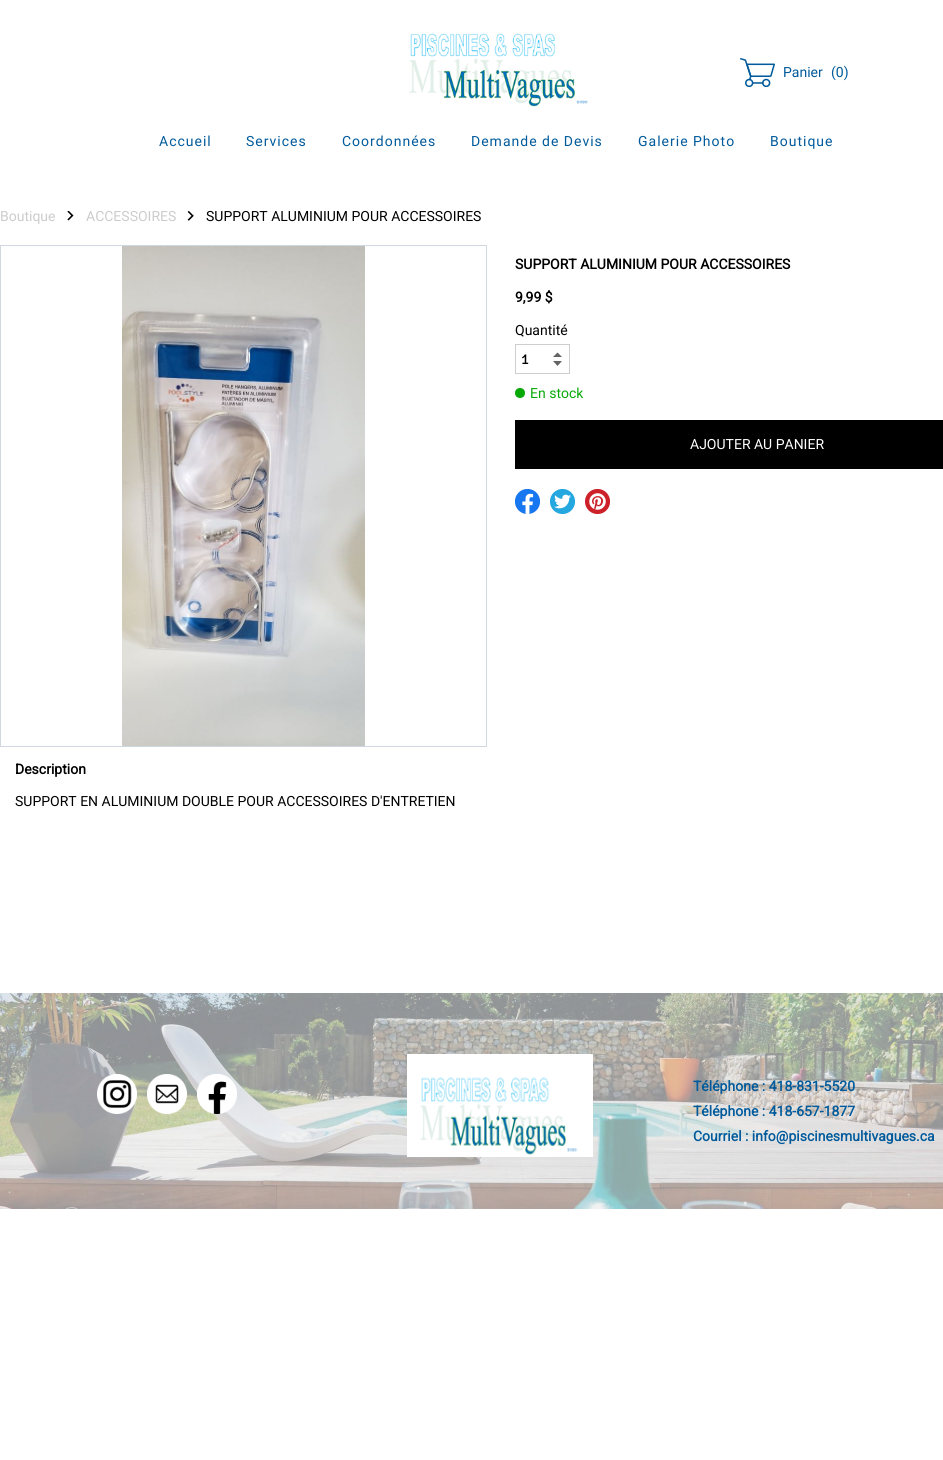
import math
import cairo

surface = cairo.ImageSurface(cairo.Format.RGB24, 943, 1460)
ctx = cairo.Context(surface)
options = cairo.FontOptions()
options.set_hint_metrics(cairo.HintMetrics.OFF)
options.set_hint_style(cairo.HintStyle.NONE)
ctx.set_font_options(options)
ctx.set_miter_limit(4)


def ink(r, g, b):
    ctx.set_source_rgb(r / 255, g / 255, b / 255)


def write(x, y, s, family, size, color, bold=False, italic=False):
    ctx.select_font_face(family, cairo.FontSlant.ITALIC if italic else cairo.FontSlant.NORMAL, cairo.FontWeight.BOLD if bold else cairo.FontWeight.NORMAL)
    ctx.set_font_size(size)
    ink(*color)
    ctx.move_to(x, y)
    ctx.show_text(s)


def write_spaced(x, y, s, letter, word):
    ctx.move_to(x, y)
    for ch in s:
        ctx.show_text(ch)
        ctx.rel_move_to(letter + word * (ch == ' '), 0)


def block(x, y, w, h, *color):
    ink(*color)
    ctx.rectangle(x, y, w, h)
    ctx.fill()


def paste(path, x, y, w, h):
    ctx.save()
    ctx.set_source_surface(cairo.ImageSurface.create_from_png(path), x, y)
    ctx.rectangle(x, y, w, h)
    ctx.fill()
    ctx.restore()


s1 = dict(family="Roboto", size=14, color=(0, 90, 155))
s2 = dict(family="Roboto", size=14, color=(204, 204, 204))
s3 = dict(family="Roboto", size=14, color=(0, 0, 0))
s4 = dict(family="Roboto", size=14, color=(0, 0, 0), bold=True)
s5 = dict(family="Signika Light", size=15, color=(0, 0, 0))
s6 = dict(family="Roboto", size=14, color=(7, 169, 7))
s7 = dict(family="Roboto", size=14, color=(255, 255, 255))
s8 = dict(family="Roboto", size=14, color=(0, 90, 155), bold=True)

ink(255, 255, 255)
ctx.paint()
paste("pic1.png", 409, 33, 179, 74)
paste("pic2.png", 740, 58, 35, 29)
write(783, 77, "Panier", **s1)
write(831, 77, "(0)", **s1)
write_spaced(159, 146, "Accueil", 1, 0)
write_spaced(246, 146, "Services", 1, 0)
write_spaced(342, 146, "Coordonnées", 1, 0)
write_spaced(471, 146, "Demande de Devis", 1, 0)
write_spaced(638, 146, "Galerie Photo", 1, 0)
write_spaced(770, 146, "Boutique", 1, 0)
write(0, 221, "Boutique", **s2)
paste("pic3.png", 67, 211, 7, 10)
write(86, 221, "ACCESSOIRES", **s2)
paste("pic4.png", 187, 211, 7, 10)
write(206, 221, "SUPPORT ALUMINIUM POUR ACCESSOIRES", **s3)
ctx.rectangle(0.5, 245.5, 486, 501)
ink(207, 215, 224)
ctx.set_line_width(1)
ctx.stroke()
paste("pic5.png", 122, 246, 243, 500)
write(515, 269, "SUPPORT ALUMINIUM POUR ACCESSOIRES", **s4)
write(515, 302, "9,99 $", **s4)
write(515, 335, "Quantité", **s3)
ctx.rectangle(515.5, 344.5, 54, 29)
ink(206, 206, 206)
ctx.stroke()
write(521, 364, "1", **s5)
ink(100, 100, 100)
ctx.new_path()
ctx.move_to(562, 357)
ctx.line_to(557.5, 352.5)
ctx.line_to(553, 357)
ctx.close_path()
ctx.move_to(553, 361)
ctx.line_to(557.5, 366)
ctx.line_to(562, 361)
ctx.close_path()
ctx.fill()
ink(7, 169, 7)
ctx.arc(520, 393, 5, 0, 2 * math.pi)
ctx.fill()
write(530, 398, "En stock", **s6)
block(515, 420, 428, 49, 0, 0, 0)
write(690, 449, "AJOUTER AU PANIER", **s7)
paste("pic6.png", 515, 489, 25, 25)
paste("pic7.png", 550, 489, 25, 25)
paste("pic8.png", 585, 489, 25, 25)
write(15, 774, "Description", **s4)
write(15, 806, "SUPPORT EN ALUMINIUM DOUBLE POUR ACCESSOIRES D'ENTRETIEN", **s3)
block(0, 993, 943, 216, 234, 234, 234)
paste("pic9.png", 0, 993, 943, 216)
paste("pic10.png", 97, 1074, 40, 40)
paste("pic11.png", 147, 1074, 40, 40)
paste("pic12.png", 197, 1074, 40, 40)
paste("pic13.png", 407, 1054, 186, 103)
write(693, 1091, "Téléphone : 418-831-5520", **s8)
write(693, 1116, "Téléphone : 418-657-1877", **s8)
write(693, 1141, "Courriel : info@piscinesmultivagues.ca", **s8)
surface.write_to_png("screenshot.png")
